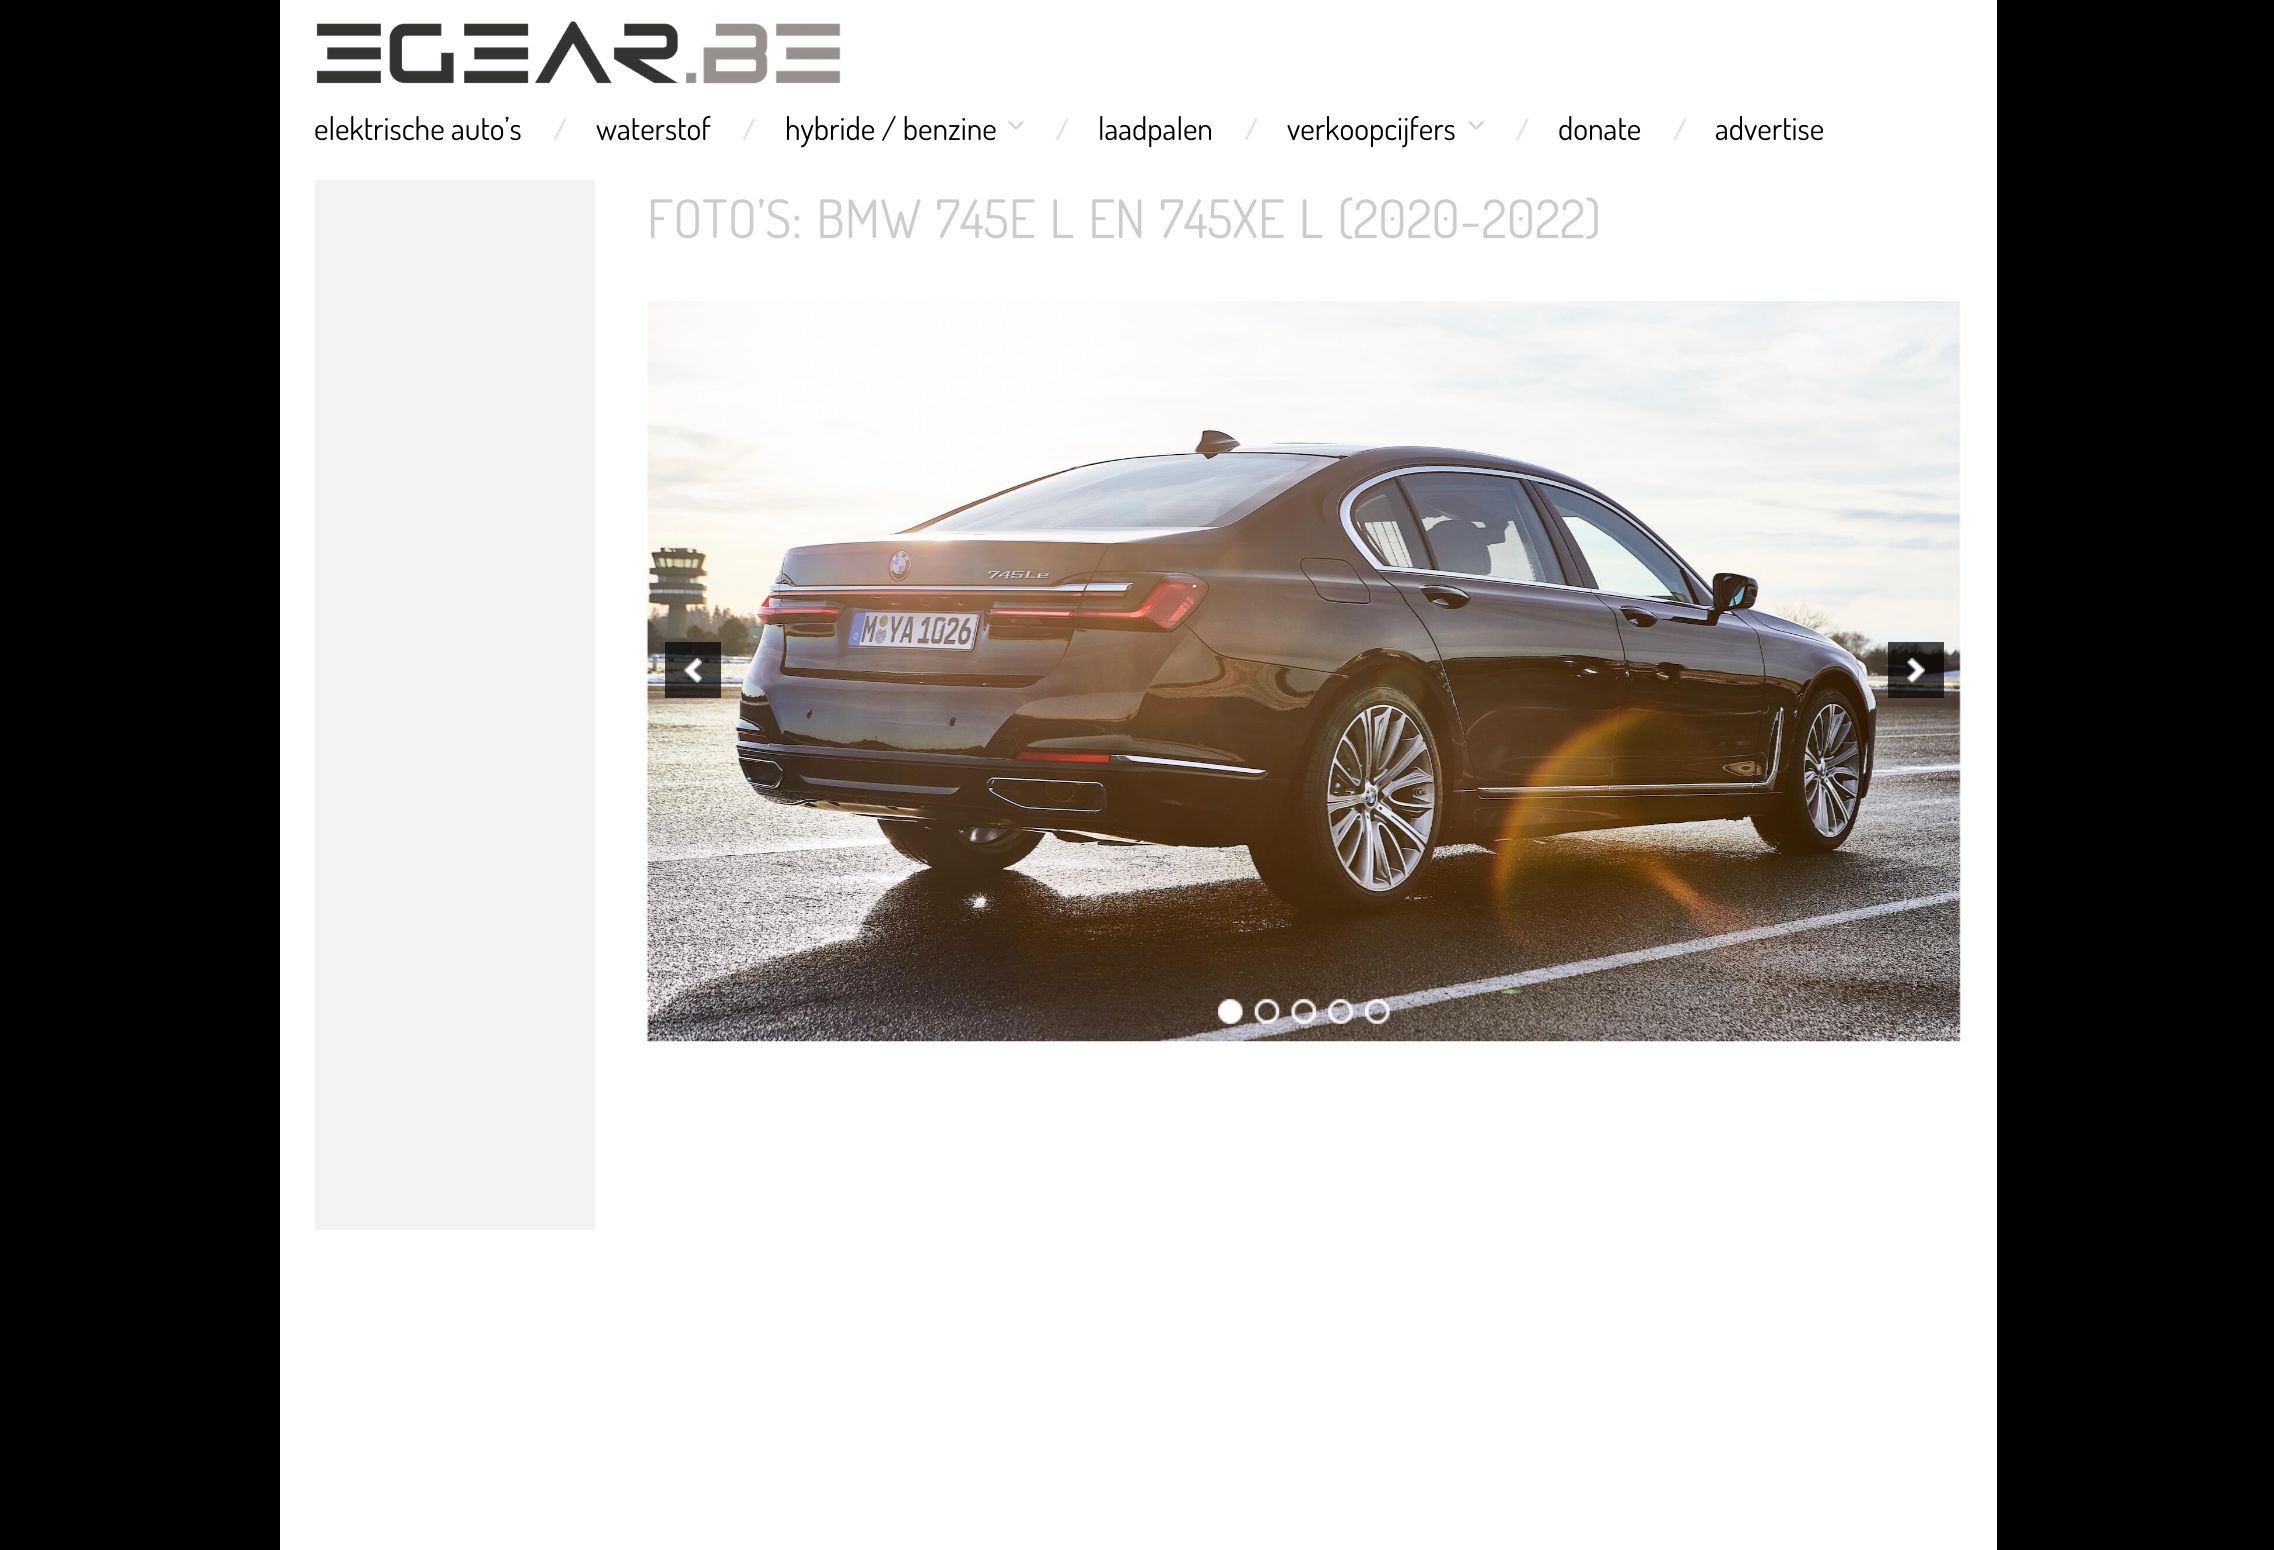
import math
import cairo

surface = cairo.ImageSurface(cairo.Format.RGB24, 2274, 1550)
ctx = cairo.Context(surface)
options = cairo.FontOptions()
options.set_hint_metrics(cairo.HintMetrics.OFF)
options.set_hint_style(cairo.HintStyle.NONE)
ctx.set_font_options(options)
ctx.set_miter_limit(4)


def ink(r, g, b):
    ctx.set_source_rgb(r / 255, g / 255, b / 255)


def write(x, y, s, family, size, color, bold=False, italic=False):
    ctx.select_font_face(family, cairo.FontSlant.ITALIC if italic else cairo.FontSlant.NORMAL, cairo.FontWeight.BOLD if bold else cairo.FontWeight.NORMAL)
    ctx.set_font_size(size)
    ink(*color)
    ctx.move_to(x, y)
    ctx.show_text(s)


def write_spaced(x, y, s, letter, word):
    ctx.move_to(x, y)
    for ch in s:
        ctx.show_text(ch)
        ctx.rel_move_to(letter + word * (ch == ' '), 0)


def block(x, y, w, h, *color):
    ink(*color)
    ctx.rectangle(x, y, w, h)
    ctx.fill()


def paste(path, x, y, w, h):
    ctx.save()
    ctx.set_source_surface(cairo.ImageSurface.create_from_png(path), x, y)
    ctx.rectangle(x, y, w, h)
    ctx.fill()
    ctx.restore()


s1 = dict(family="Dosis", size=31.5, color=(0, 0, 0))

ink(0, 0, 0)
ctx.paint()
block(280, 0, 1717, 1550, 255, 255, 255)
paste("pic1.png", 316, 21, 525, 63)
write(314, 140, "elektrische auto’s", **s1)
paste("pic2.png", 553, 117, 14, 23)
write(596, 140, "waterstof", **s1)
paste("pic3.png", 742, 117, 14, 23)
paste("pic4.png", 1008, 120, 16, 10)
write(785, 140, "hybride / benzine", **s1)
paste("pic5.png", 1055, 117, 14, 23)
write(1098, 140, "laadpalen", **s1)
paste("pic5.png", 1244, 117, 14, 23)
paste("pic6.png", 1468, 120, 16, 10)
write(1287, 140, "verkoopcijfers", **s1)
paste("pic7.png", 1515, 117, 14, 23)
write(1558, 140, "donate", **s1)
paste("pic3.png", 1673, 117, 14, 23)
write(1715, 140, "advertise", **s1)
block(315, 180, 280, 1050, 243, 243, 243)
ctx.set_font_size(52.9)
ink(204, 204, 204)
write_spaced(647, 238, "FOTO’S: BMW 745E L EN 745XE L (2020-2022)", 0, 3.5)
paste("pic8.png", 646, 301, 1315, 741)
ctx.set_source_rgba(0, 0, 0, 0.7)
ctx.rectangle(665, 642, 56, 56)
ctx.fill()
paste("pic9.png", 684, 658, 18, 25)
ctx.rectangle(1888, 642, 56, 56)
ctx.fill()
paste("pic10.png", 1907, 658, 18, 25)
paste("pic11.png", 1218, 999, 25, 25)
paste("pic12.png", 1254, 999, 26, 25)
paste("pic13.png", 1291, 999, 25, 25)
paste("pic14.png", 1328, 999, 25, 25)
paste("pic15.png", 1365, 999, 25, 25)
surface.write_to_png("screenshot.png")
